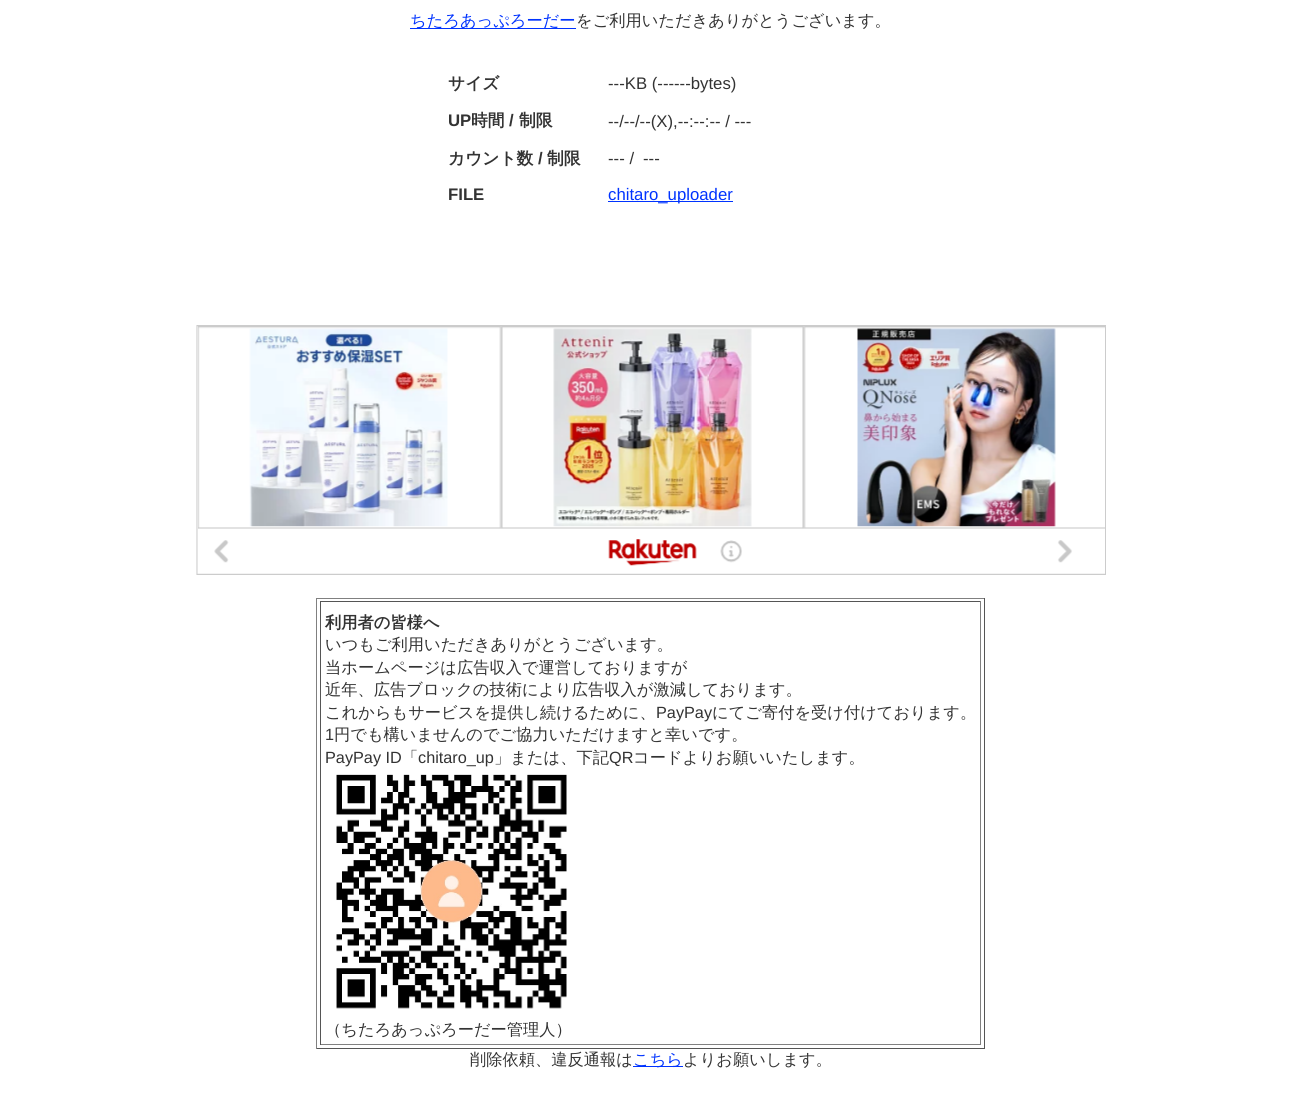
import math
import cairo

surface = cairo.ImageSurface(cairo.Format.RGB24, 1301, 1117)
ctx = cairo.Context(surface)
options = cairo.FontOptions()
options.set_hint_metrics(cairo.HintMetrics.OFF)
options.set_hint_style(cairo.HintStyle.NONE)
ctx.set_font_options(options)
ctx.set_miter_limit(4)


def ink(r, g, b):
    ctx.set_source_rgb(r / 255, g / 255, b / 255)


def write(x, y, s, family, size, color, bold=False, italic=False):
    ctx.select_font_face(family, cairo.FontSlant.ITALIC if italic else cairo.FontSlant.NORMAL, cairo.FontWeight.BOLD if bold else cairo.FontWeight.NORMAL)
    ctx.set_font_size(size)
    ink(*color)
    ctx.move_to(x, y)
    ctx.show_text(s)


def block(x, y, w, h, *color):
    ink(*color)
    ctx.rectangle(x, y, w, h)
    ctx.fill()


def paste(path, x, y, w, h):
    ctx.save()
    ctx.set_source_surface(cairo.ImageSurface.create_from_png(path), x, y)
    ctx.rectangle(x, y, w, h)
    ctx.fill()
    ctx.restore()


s1 = dict(family="WenQuanYi Zen Hei Medium", size=16.25, color=(0, 51, 255))
s2 = dict(family="WenQuanYi Zen Hei Medium", size=16.25, color=(51, 51, 51))
s3 = dict(family="WenQuanYi Zen Hei", size=16.75, color=(51, 51, 51), bold=True)
s4 = dict(family="Liberation Sans", size=16.75, color=(51, 51, 51))
s5 = dict(family="Liberation Sans", size=16.75, color=(51, 51, 51), bold=True)
s6 = dict(family="Liberation Sans", size=16.75, color=(0, 51, 255))
s7 = dict(family="WenQuanYi Zen Hei", size=16.25, color=(51, 51, 51), bold=True)
s8 = dict(family="Liberation Sans", size=16.25, color=(51, 51, 51))

ink(255, 255, 255)
ctx.paint()
block(410, 28, 166, 1, 0, 51, 255)
write(410, 26, "ちたろあっぷろーだー", **s1)
write(576, 26, "をご利用いただきありがとうございます。", **s2)
write(448, 89, "サイズ", **s3)
write(608, 89, "---KB (------bytes)", **s4)
write(448, 126, "UP", **s5)
write(471, 126, "時間", **s3)
write(509, 126, "/", **s5)
write(519, 126, "制限", **s3)
write(608, 127, "--/--/--(X),--:--:-- / ---", **s4)
write(448, 164, "カウント数", **s3)
write(538, 164, "/", **s5)
write(547, 164, "制限", **s3)
write(608, 164, "--- /", **s4)
write(643, 164, "---", **s4)
write(448, 200, "FILE", **s5)
block(608, 201, 125, 1, 0, 51, 255)
write(608, 200, "chitaro_uploader", **s6)
paste("pic1.png", 196, 325, 910, 250)
block(316, 598, 669, 1, 128, 128, 128)
block(984, 598, 1, 451, 85, 85, 85)
block(316, 1048, 669, 1, 85, 85, 85)
block(316, 598, 1, 451, 128, 128, 128)
block(320, 601, 661, 1, 85, 85, 85)
block(980, 601, 1, 444, 128, 128, 128)
block(320, 1044, 661, 1, 128, 128, 128)
block(320, 601, 1, 444, 85, 85, 85)
write(325, 628, "利用者の皆様へ", **s7)
write(325, 650, "いつもご利用いただきありがとうございます。", **s2)
write(325, 673, "当ホームページは広告収入で運営しておりますが", **s2)
write(325, 695, "近年、広告ブロックの技術により広告収入が激減しております。", **s2)
write(325, 718, "これからもサービスを提供し続けるために、", **s2)
write(656, 718, "PayPay", **s8)
write(712, 718, "にてご寄付を受け付けております。", **s2)
write(325, 740, "1", **s8)
write(334, 740, "円でも構いませんのでご協力いただけますと幸いです。", **s2)
write(325, 763, "PayPay ID", **s8)
write(402, 763, "「", **s2)
write(418, 763, "chitaro_up", **s8)
write(494, 763, "」または、下記", **s2)
write(609, 763, "QR", **s8)
write(633, 763, "コードよりお願いいたします。", **s2)
paste("pic2.png", 336, 774, 231, 235)
write(325, 1035, "（ちたろあっぷろーだー管理人）", **s2)
write(470, 1065, "削除依頼、違反通報は", **s2)
block(633, 1066, 50, 1, 0, 51, 255)
write(633, 1065, "こちら", **s1)
write(683, 1065, "よりお願いします。", **s2)
surface.write_to_png("screenshot.png")
